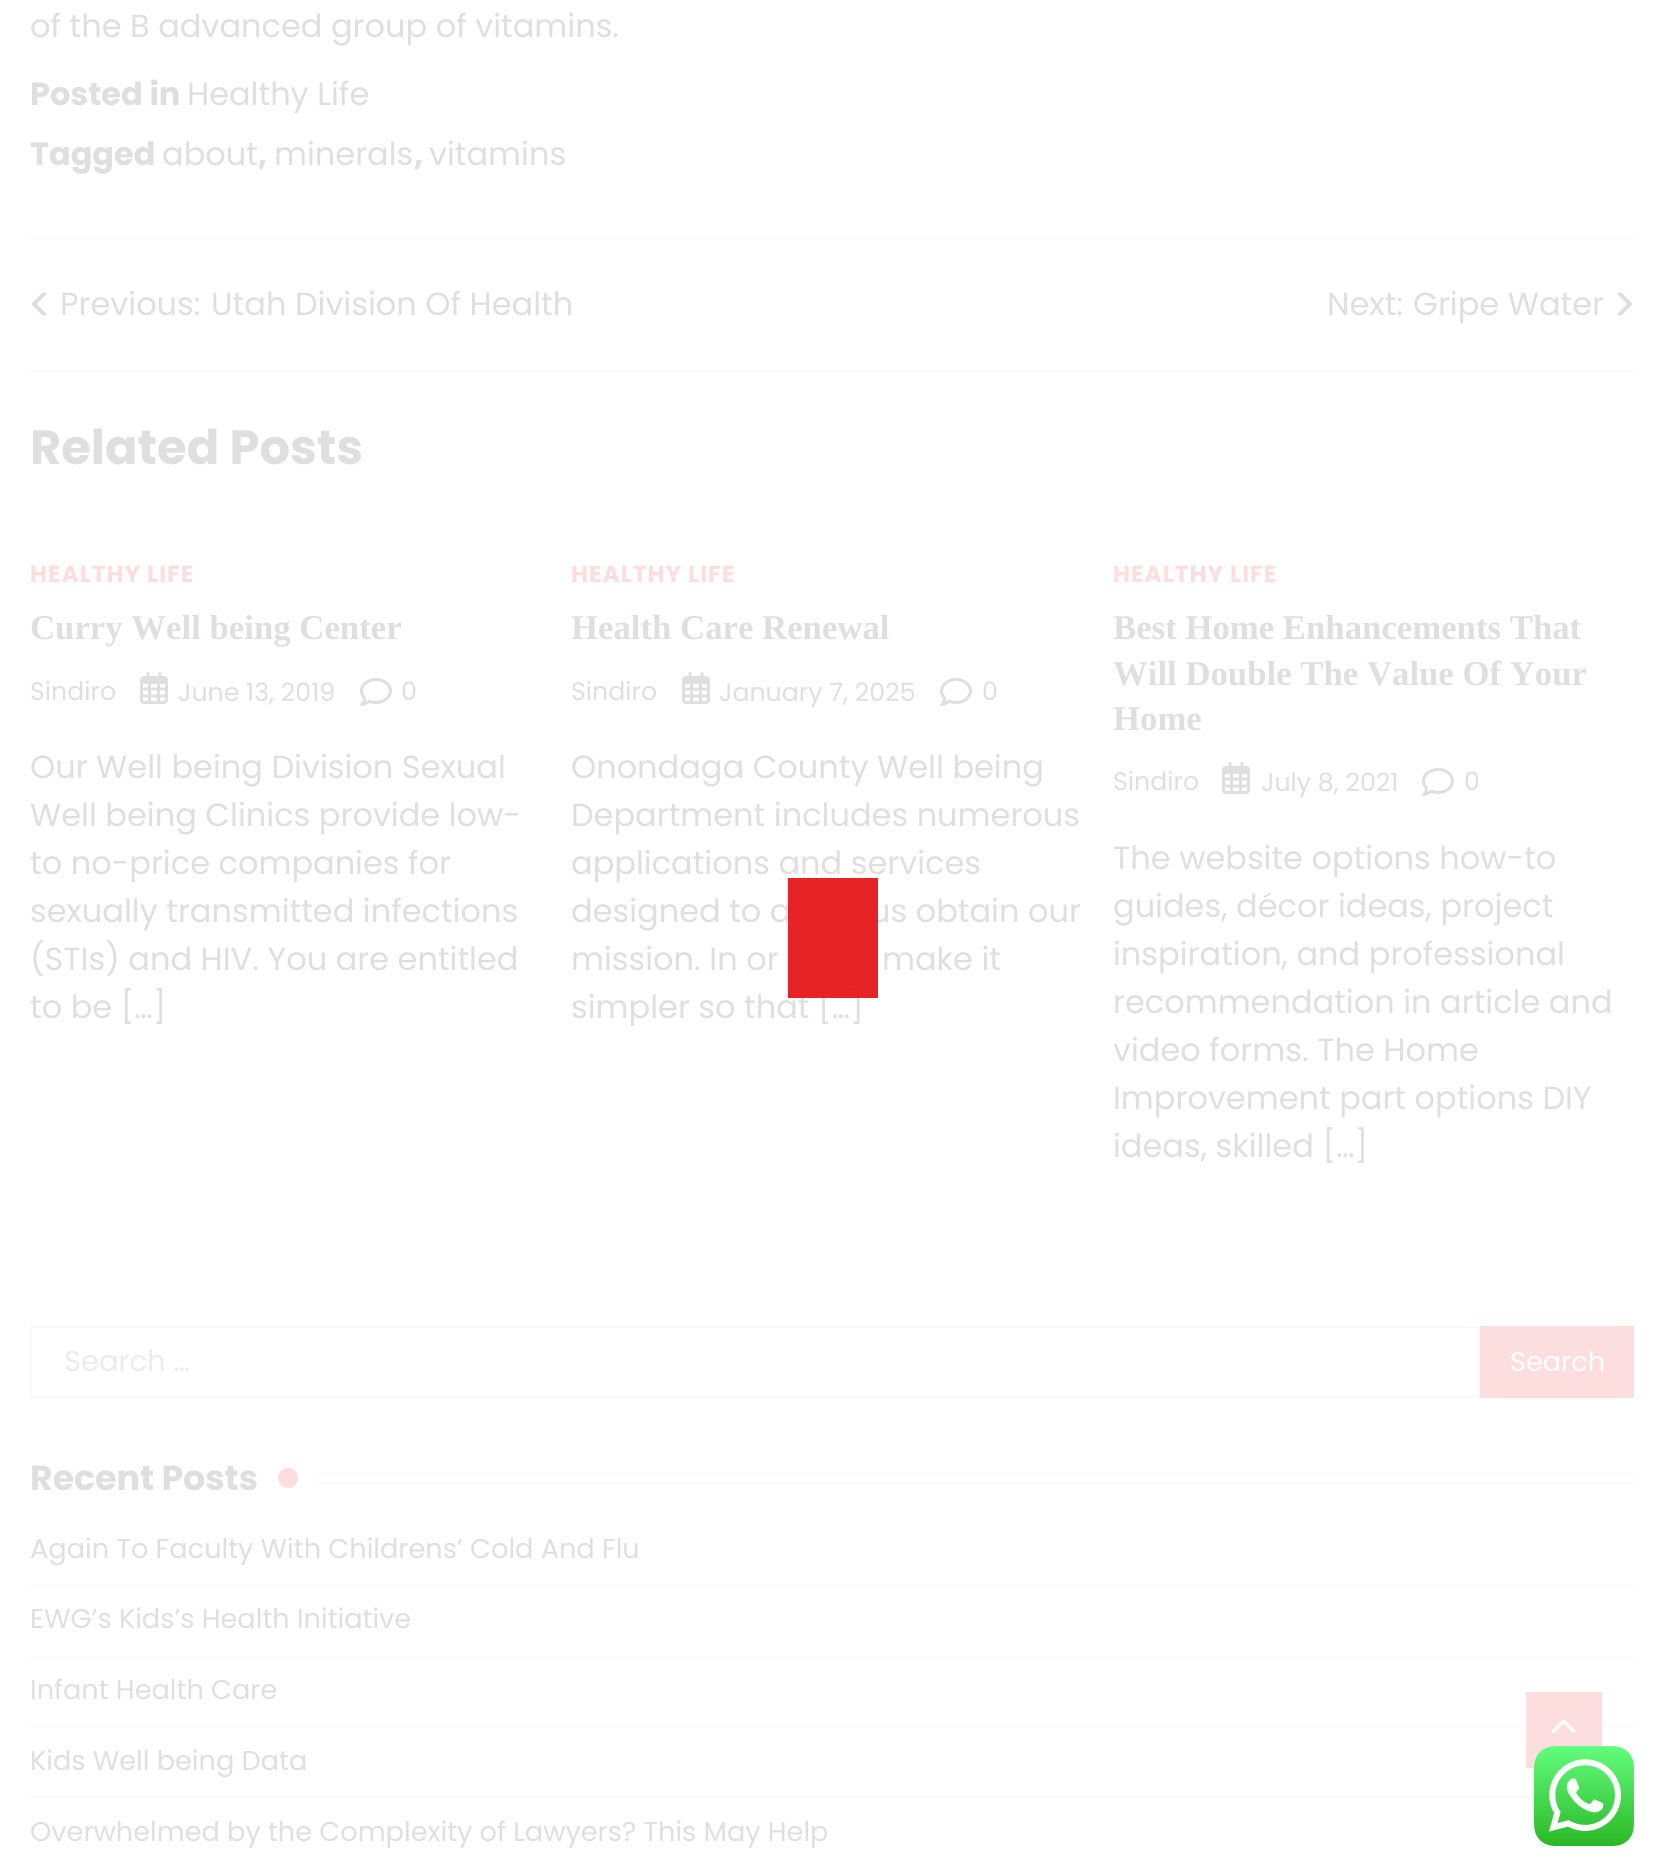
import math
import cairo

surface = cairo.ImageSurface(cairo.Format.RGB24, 1663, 1875)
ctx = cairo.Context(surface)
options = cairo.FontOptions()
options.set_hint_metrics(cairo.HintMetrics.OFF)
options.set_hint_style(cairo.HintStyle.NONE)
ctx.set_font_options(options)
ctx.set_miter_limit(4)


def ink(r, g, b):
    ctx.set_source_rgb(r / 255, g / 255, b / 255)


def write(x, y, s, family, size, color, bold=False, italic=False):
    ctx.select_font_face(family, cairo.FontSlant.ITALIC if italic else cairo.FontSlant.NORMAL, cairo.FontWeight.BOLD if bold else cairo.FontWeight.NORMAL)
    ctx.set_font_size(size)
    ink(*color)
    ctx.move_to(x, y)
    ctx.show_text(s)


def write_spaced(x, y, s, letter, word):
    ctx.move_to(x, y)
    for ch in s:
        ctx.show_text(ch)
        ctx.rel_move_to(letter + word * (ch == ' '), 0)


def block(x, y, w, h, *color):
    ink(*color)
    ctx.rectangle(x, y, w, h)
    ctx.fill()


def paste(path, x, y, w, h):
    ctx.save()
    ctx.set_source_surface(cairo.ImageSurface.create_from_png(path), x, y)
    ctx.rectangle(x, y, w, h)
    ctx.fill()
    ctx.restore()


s1 = dict(family="Poppins", size=32, color=(223, 223, 223))
s2 = dict(family="Poppins", size=32, color=(223, 223, 223), bold=True)
s3 = dict(family="Poppins", size=48, color=(223, 223, 223), bold=True)
s4 = dict(family="Liberation Serif", size=34.75, color=(223, 223, 223), bold=True)
s5 = dict(family="Poppins", size=25.25, color=(223, 223, 223))
s6 = dict(family="Poppins", size=29, color=(236, 236, 236))
s7 = dict(family="Poppins", size=27.15, color=(255, 255, 255))
s8 = dict(family="Poppins", size=34.75, color=(223, 223, 223), bold=True)
s9 = dict(family="Poppins", size=27.15, color=(223, 223, 223))

ink(255, 255, 255)
ctx.paint()
write(30, 37, "of the B advanced group of vitamins.", **s1)
write(30, 105, "Posted in", **s2)
write(187, 105, "Healthy Life", **s1)
write(30, 165, "Tagged", **s2)
write(162, 165, "about", **s1)
write(258, 165, ",", **s2)
write(274, 165, "minerals", **s1)
write(414, 165, ",", **s2)
write(429, 165, "vitamins", **s1)
block(30, 238, 1604, 2, 250, 250, 250)
block(30, 370, 1604, 2, 250, 250, 250)
paste("pic1.png", 32, 292, 14, 24)
write(60, 315, "Previous:", **s1)
write(211, 315, "Utah Division Of Health", **s1)
write(1327, 315, "Next:", **s1)
write(1413, 315, "Gripe Water", **s1)
paste("pic2.png", 1618, 292, 14, 24)
write(30, 464, "Related Posts", **s3)
ctx.set_font_size(23.25)
ink(252, 222, 223)
write_spaced(30, 582, "HEALTHY LIFE", 1, 0)
write(30, 639, "Curry Well being Center", **s4)
write(30, 700, "Sindiro", **s5)
paste("pic3.png", 140, 672, 28, 32)
write(178, 701, "June 13, 2019", **s5)
paste("pic4.png", 360, 678, 32, 28)
write(401, 700, "0", **s5)
write(30, 778, "Our Well being Division Sexual", **s1)
write(30, 826, "Well being Clinics provide low-", **s1)
write(30, 874, "to no-price companies for", **s1)
write(30, 922, "sexually transmitted infections", **s1)
write(30, 970, "(STIs) and HIV. You are entitled", **s1)
write(30, 1018, "to be […]", **s1)
ctx.select_font_face("Poppins", cairo.FontSlant.NORMAL, cairo.FontWeight.BOLD)
ctx.set_font_size(23.25)
ink(252, 222, 223)
write_spaced(571, 582, "HEALTHY LIFE", 1, 0)
write(571, 639, "Health Care Renewal", **s4)
write(571, 700, "Sindiro", **s5)
paste("pic3.png", 682, 672, 28, 32)
write(719, 701, "January 7, 2025", **s5)
paste("pic4.png", 940, 678, 32, 28)
write(982, 700, "0", **s5)
write(571, 778, "Onondaga County Well being", **s1)
write(571, 826, "Department includes numerous", **s1)
write(571, 874, "applications and services", **s1)
write(571, 922, "designed to a", **s1)
write(870, 922, "us obtain our", **s1)
write(571, 970, "mission. In or", **s1)
write(882, 970, "make it", **s1)
write(571, 1018, "simpler so that […]", **s1)
ctx.select_font_face("Poppins", cairo.FontSlant.NORMAL, cairo.FontWeight.BOLD)
ctx.set_font_size(23.25)
ink(252, 222, 223)
write_spaced(1113, 582, "HEALTHY LIFE", 1, 0)
write(1113, 639, "Best Home Enhancements That", **s4)
write(1113, 685, "Will Double The Value Of Your", **s4)
write(1113, 730, "Home", **s4)
write(1113, 790, "Sindiro", **s5)
paste("pic3.png", 1222, 762, 28, 32)
write(1261, 791, "July 8, 2021", **s5)
paste("pic4.png", 1422, 768, 32, 28)
write(1464, 790, "0", **s5)
write(1113, 869, "The website options how-to", **s1)
write(1113, 917, "guides, décor ideas, project", **s1)
write(1113, 965, "inspiration, and professional", **s1)
write(1113, 1013, "recommendation in article and", **s1)
write(1113, 1061, "video forms. The Home", **s1)
write(1113, 1109, "Improvement part options DIY", **s1)
write(1113, 1157, "ideas, skilled […]", **s1)
ctx.rectangle(31, 1327, 1448, 70)
ink(249, 248, 249)
ctx.stroke()
write(64, 1371, "Search …", **s6)
block(1480, 1326, 154, 72, 252, 222, 223)
write(1510, 1371, "Search", **s7)
write(30, 1490, "Recent Posts", **s8)
ink(252, 222, 223)
ctx.new_path()
ctx.arc(288, 1478, 10, 0, 2 * math.pi)
ctx.fill()
block(318, 1472, 1316, 2, 250, 250, 250)
block(318, 1482, 1316, 2, 250, 250, 250)
block(30, 1584, 1604, 2, 250, 250, 250)
write(30, 1558, "Again To Faculty With Childrens’ Cold And Flu", **s9)
block(30, 1656, 1604, 2, 250, 250, 250)
write(30, 1628, "EWG’s Kids’s Health Initiative", **s9)
block(30, 1726, 1604, 2, 250, 250, 250)
write(30, 1699, "Infant Health Care", **s9)
block(30, 1796, 1604, 2, 250, 250, 250)
write(30, 1770, "Kids Well being Data", **s9)
write(30, 1841, "Overwhelmed by the Complexity of Lawyers? This May Help", **s9)
ctx.set_source_rgba(0.906, 0.075, 0.098, 0.59)
ctx.rectangle(788, 878, 90, 120)
ctx.fill()
ctx.rectangle(788, 878, 90, 120)
ctx.fill()
ctx.rectangle(788, 878, 90, 120)
ctx.fill()
ink(252, 222, 223)
ctx.rectangle(1525, 1691, 78, 78)
ctx.fill_preserve()
ink(255, 255, 255)
ctx.stroke()
paste("pic5.png", 1551, 1719, 25, 14)
paste("pic6.png", 1534, 1746, 100, 100)
surface.write_to_png("screenshot.png")
